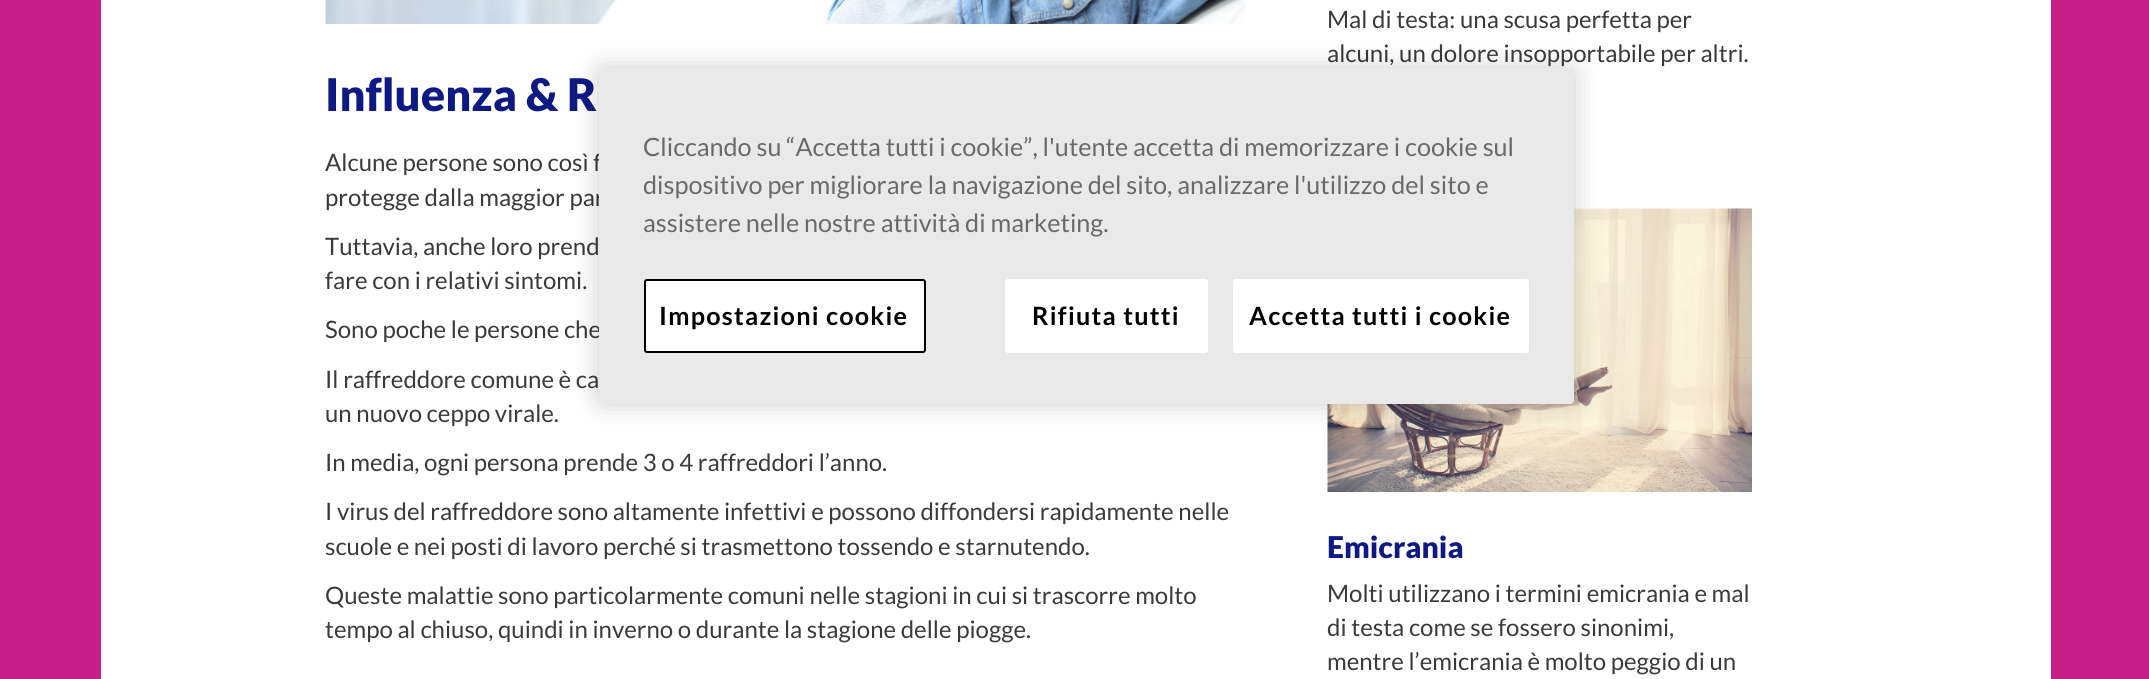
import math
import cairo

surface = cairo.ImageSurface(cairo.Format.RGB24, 2149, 679)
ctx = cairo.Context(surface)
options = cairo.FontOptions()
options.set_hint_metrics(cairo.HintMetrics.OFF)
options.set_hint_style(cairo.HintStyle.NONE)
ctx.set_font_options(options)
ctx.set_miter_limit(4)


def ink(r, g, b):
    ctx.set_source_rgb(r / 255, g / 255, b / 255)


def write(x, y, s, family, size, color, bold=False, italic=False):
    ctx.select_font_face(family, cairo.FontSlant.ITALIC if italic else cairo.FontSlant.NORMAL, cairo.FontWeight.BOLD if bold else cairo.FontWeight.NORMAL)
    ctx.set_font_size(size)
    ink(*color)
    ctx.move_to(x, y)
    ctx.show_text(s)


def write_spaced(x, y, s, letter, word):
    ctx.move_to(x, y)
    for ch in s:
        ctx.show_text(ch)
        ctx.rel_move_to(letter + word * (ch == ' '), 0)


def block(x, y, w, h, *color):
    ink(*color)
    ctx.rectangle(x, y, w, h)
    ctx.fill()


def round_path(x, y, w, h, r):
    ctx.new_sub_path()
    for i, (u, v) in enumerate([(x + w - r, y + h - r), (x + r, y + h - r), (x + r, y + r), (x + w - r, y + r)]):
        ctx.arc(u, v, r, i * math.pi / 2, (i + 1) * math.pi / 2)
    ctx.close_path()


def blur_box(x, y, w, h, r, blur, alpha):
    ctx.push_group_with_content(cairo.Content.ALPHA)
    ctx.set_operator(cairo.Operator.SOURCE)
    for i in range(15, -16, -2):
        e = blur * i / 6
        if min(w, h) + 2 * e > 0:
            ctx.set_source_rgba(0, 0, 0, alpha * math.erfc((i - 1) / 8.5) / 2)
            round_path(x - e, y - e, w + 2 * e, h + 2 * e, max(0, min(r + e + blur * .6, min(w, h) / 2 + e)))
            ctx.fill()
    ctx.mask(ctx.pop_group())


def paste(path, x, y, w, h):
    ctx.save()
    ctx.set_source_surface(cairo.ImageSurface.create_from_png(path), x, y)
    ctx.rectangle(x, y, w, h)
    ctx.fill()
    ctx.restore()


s1 = dict(family="Lato Black", size=45, color=(14, 25, 131))
s2 = dict(family="Lato", size=24, color=(57, 59, 58))
s3 = dict(family="Lato Black", size=30, color=(14, 25, 131))
s4 = dict(family="Lato", size=25.2, color=(105, 105, 105))

ink(199, 31, 135)
ctx.paint()
block(101, 0, 1950, 679, 255, 255, 255)
paste("pic1.png", 325, 0, 920, 24)
write(325, 111, "Influenza & R", **s1)
write(325, 171, "Alcune persone sono così f", **s2)
write(325, 206, "protegge dalla maggior par", **s2)
write(325, 255, "Tuttavia, anche loro prend", **s2)
write(325, 289, "fare con i relativi sintomi.", **s2)
write(325, 338, "Sono poche le persone che", **s2)
write(325, 388, "Il raffreddore comune è ca", **s2)
write(325, 422, "un nuovo ceppo virale.", **s2)
write(325, 471, "In media, ogni persona prende 3 o 4 raffreddori l’anno.", **s2)
write(325, 520, "I virus del raffreddore sono altamente infettivi e possono diffondersi rapidamente nelle", **s2)
write(325, 555, "scuole e nei posti di lavoro perché si trasmettono tossendo e starnutendo.", **s2)
write(325, 604, "Queste malattie sono particolarmente comuni nelle stagioni in cui si trascorre molto", **s2)
write(325, 638, "tempo al chiuso, quindi in inverno o durante la stagione delle piogge.", **s2)
write(1327, 28, "Mal di testa: una scusa perfetta per", **s2)
write(1327, 62, "alcuni, un dolore insopportabile per altri.", **s2)
paste("pic2.png", 1327, 208, 425, 284)
write(1327, 558, "Emicrania", **s3)
write(1327, 602, "Molti utilizzano i termini emicrania e mal", **s2)
write(1327, 636, "di testa come se fossero sinonimi,", **s2)
write(1327, 670, "mentre l’emicrania è molto peggio di un", **s2)
ink(0, 0, 0)
blur_box(599, 68, 975, 336, 4, 13.5, 0.2)
ink(233, 233, 233)
round_path(599, 68, 975, 336, 4)
ctx.fill()
write(643, 156, "Cliccando su “Accetta tutti i cookie”, l'utente accetta di memorizzare i cookie sul", **s4)
write(643, 194, "dispositivo per migliorare la navigazione del sito, analizzare l'utilizzo del sito e", **s4)
write(643, 232, "assistere nelle nostre attività di marketing.", **s4)
ink(255, 255, 255)
round_path(645, 280, 280, 72, 2)
ctx.fill_preserve()
ink(0, 0, 0)
ctx.stroke()
ctx.select_font_face("Lato", cairo.FontSlant.NORMAL, cairo.FontWeight.BOLD)
write_spaced(659, 325, "Impostazioni cookie", 1.25, 0)
ink(255, 255, 255)
round_path(1006, 280, 201, 72, 2)
ctx.fill_preserve()
ctx.stroke()
ink(0, 0, 0)
write_spaced(1032, 325, "Rifiuta tutti", 1.25, 0)
ink(255, 255, 255)
round_path(1234, 280, 294, 72, 2)
ctx.fill_preserve()
ctx.stroke()
ink(0, 0, 0)
write_spaced(1249, 325, "Accetta tutti i cookie", 1.25, 0)
surface.write_to_png("screenshot.png")
